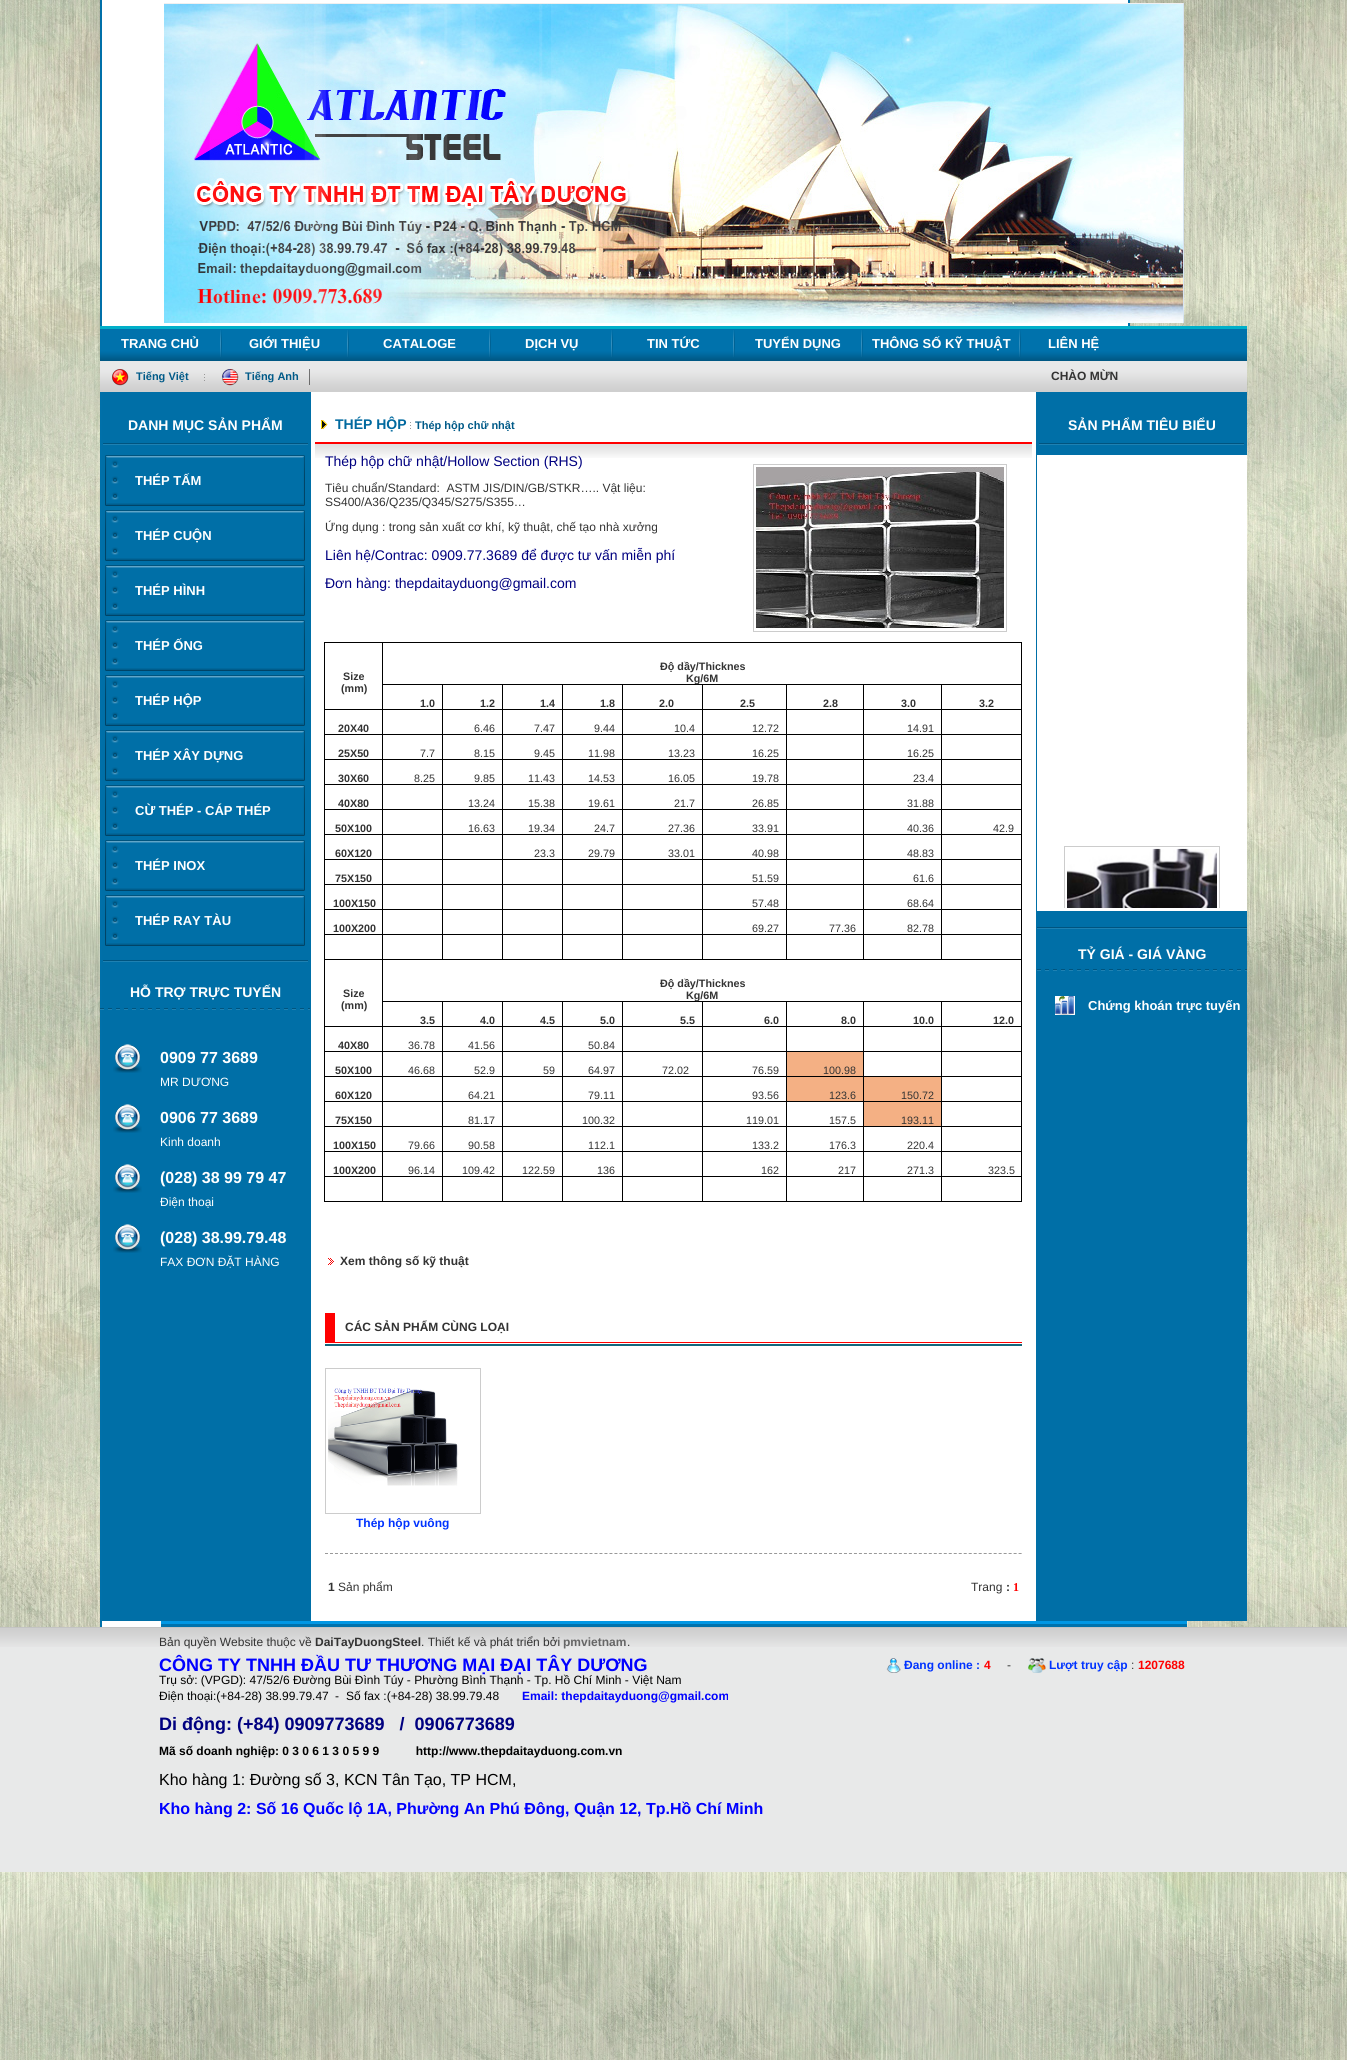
import math
import cairo

surface = cairo.ImageSurface(cairo.Format.RGB24, 1347, 2060)
ctx = cairo.Context(surface)
options = cairo.FontOptions()
options.set_hint_metrics(cairo.HintMetrics.OFF)
options.set_hint_style(cairo.HintStyle.NONE)
ctx.set_font_options(options)
ctx.set_miter_limit(4)


def ink(r, g, b):
    ctx.set_source_rgb(r / 255, g / 255, b / 255)


def write(x, y, s, family, size, color, bold=False, italic=False):
    ctx.select_font_face(family, cairo.FontSlant.ITALIC if italic else cairo.FontSlant.NORMAL, cairo.FontWeight.BOLD if bold else cairo.FontWeight.NORMAL)
    ctx.set_font_size(size)
    ink(*color)
    ctx.move_to(x, y)
    ctx.show_text(s)


def block(x, y, w, h, *color):
    ink(*color)
    ctx.rectangle(x, y, w, h)
    ctx.fill()


def paste(path, x, y, w, h):
    ctx.save()
    ctx.set_source_surface(cairo.ImageSurface.create_from_png(path), x, y)
    ctx.rectangle(x, y, w, h)
    ctx.fill()
    ctx.restore()


s1 = dict(family="Liberation Sans", size=13, color=(255, 255, 255), bold=True)
s2 = dict(family="Liberation Sans", size=11, color=(0, 90, 136), bold=True)
s3 = dict(family="Liberation Sans", size=12, color=(51, 51, 51), bold=True)
s4 = dict(family="Liberation Sans", size=14, color=(255, 255, 255), bold=True)
s5 = dict(family="Liberation Sans", size=16, color=(255, 255, 255), bold=True)
s6 = dict(family="Liberation Sans", size=12, color=(255, 255, 255))
s7 = dict(family="Liberation Sans", size=14, color=(0, 105, 159), bold=True)
s8 = dict(family="Liberation Sans", size=14, color=(0, 0, 128))
s9 = dict(family="Liberation Sans", size=12, color=(51, 51, 51))
s10 = dict(family="Liberation Sans", size=10.75, color=(51, 51, 51), bold=True)
s11 = dict(family="Liberation Sans", size=10.75, color=(51, 51, 51))
s12 = dict(family="Liberation Sans", size=12, color=(0, 51, 255), bold=True)
s13 = dict(family="Liberation Serif", size=12, color=(255, 0, 0), bold=True)
s14 = dict(family="Liberation Sans", size=12, color=(102, 102, 102), bold=True)
s15 = dict(family="Liberation Sans", size=18, color=(0, 0, 255), bold=True)
s16 = dict(family="Liberation Sans", size=12, color=(0, 0, 0))
s17 = dict(family="Liberation Sans", size=12, color=(0, 0, 255), bold=True)
s18 = dict(family="Liberation Sans", size=18, color=(0, 0, 128), bold=True)
s19 = dict(family="Liberation Sans", size=12, color=(0, 0, 0), bold=True)
s20 = dict(family="Liberation Sans", size=16, color=(0, 0, 0))
s21 = dict(family="Liberation Sans", size=16, color=(0, 0, 255), bold=True)
s22 = dict(family="Liberation Sans", size=12, color=(255, 0, 0), bold=True)

ink(255, 255, 255)
ctx.paint()
paste("pic1.png", 0, 0, 1347, 2060)
paste("pic2.png", 100, 0, 1030, 1621)
paste("pic3.png", 164, 3, 1020, 320)
paste("pic4.png", 100, 326, 1147, 35)
write(121, 348, "TRANG CHỦ", **s1)
paste("pic5.png", 220, 330, 2, 27)
write(249, 348, "GIỚI THIỆU", **s1)
paste("pic5.png", 347, 330, 2, 27)
write(383, 348, "CATALOGE", **s1)
paste("pic5.png", 489, 330, 2, 27)
write(525, 348, "DỊCH VỤ", **s1)
paste("pic5.png", 611, 330, 2, 27)
write(647, 348, "TIN TỨC", **s1)
paste("pic5.png", 733, 330, 2, 27)
write(755, 348, "TUYỂN DỤNG", **s1)
paste("pic5.png", 861, 330, 2, 27)
write(872, 348, "THÔNG SỐ KỸ THUẬT", **s1)
paste("pic5.png", 1019, 330, 2, 27)
write(1048, 348, "LIÊN HỆ", **s1)
paste("pic6.png", 100, 361, 1147, 31)
paste("pic7.png", 112, 369, 17, 17)
write(136, 380, "Tiếng Việt", **s2)
paste("pic8.png", 204, 374, 1, 7)
paste("pic9.png", 222, 369, 17, 17)
write(245, 380, "Tiếng Anh", **s2)
paste("pic10.png", 309, 369, 1, 16)
write(1051, 380, "CHÀO MỪN", **s3)
block(102, 392, 209, 1229, 0, 111, 167)
write(128, 430, "DANH MỤC SẢN PHẨM", **s4)
paste("pic11.png", 103, 443, 205, 2)
paste("pic12.png", 105, 455, 200, 51)
write(135, 485, "THÉP TẤM", **s1)
paste("pic12.png", 105, 510, 200, 51)
write(135, 540, "THÉP CUỘN", **s1)
paste("pic12.png", 105, 565, 200, 51)
write(135, 595, "THÉP HÌNH", **s1)
paste("pic12.png", 105, 620, 200, 51)
write(135, 650, "THÉP ỐNG", **s1)
paste("pic12.png", 105, 675, 200, 51)
write(135, 705, "THÉP HỘP", **s1)
paste("pic12.png", 105, 730, 200, 51)
write(135, 760, "THÉP XÂY DỰNG", **s1)
paste("pic12.png", 105, 785, 200, 51)
write(135, 815, "CỪ THÉP - CÁP THÉP", **s1)
paste("pic12.png", 105, 840, 200, 51)
write(135, 870, "THÉP INOX", **s1)
paste("pic12.png", 105, 895, 200, 51)
write(135, 925, "THÉP RAY TÀU", **s1)
paste("pic11.png", 103, 960, 205, 2)
write(130, 997, "HỖ TRỢ TRỰC TUYẾN", **s4)
paste("pic13.png", 100, 1008, 210, 2)
paste("pic14.png", 113, 1044, 29, 29)
write(160, 1063, "0909 77 3689", **s5)
write(160, 1086, "MR DƯƠNG", **s6)
paste("pic14.png", 113, 1104, 29, 29)
write(160, 1123, "0906 77 3689", **s5)
write(160, 1146, "Kinh doanh", **s6)
paste("pic14.png", 113, 1164, 29, 29)
write(160, 1183, "(028) 38 99 79 47", **s5)
write(160, 1206, "Điện thoại", **s6)
paste("pic14.png", 113, 1224, 29, 29)
write(160, 1243, "(028) 38.99.79.48", **s5)
write(160, 1266, "FAX ĐƠN ĐẶT HÀNG", **s6)
block(315, 442, 717, 2, 255, 0, 0)
paste("pic15.png", 321, 420, 7, 9)
write(335, 429, "THÉP HỘP", **s7)
paste("pic16.png", 410, 422, 1, 7)
write(415, 429, "Thép hộp chữ nhật", **s2)
paste("pic17.png", 315, 444, 717, 14)
write(325, 466, "Thép hộp chữ nhật/Hollow Section (RHS)", **s8)
write(325, 492, "Tiêu chuẩn/Standard:  ASTM JIS/DIN/GB/STKR….. Vật liệu:", **s9)
ctx.rectangle(753.5, 464.5, 253, 167)
ink(204, 204, 204)
ctx.set_line_width(1)
ctx.stroke()
paste("pic18.png", 756, 467, 248, 161)
write(325, 506, "SS400/A36/Q235/Q345/S275/S355…", **s9)
write(325, 531, "Ứng dụng : trong sản xuất cơ khí, kỹ thuật, chế tạo nhà xưởng", **s9)
write(325, 560, "Liên hệ/Contrac: 0909.77.3689 để được tư vấn miễn phí", **s8)
write(325, 588, "Đơn hàng: thepdaitayduong@gmail.com", **s8)
block(324, 642, 698, 1, 0, 0, 0)
block(1021, 909, 1, 293, 0, 0, 0)
block(1021, 684, 1, 226, 0, 0, 0)
block(1021, 642, 1, 43, 0, 0, 0)
block(941, 959, 81, 1, 0, 0, 0)
block(941, 934, 1, 26, 0, 0, 0)
block(941, 934, 81, 1, 0, 0, 0)
block(941, 909, 1, 26, 0, 0, 0)
block(941, 909, 81, 1, 0, 0, 0)
block(941, 884, 1, 26, 0, 0, 0)
block(941, 884, 81, 1, 0, 0, 0)
block(941, 859, 1, 26, 0, 0, 0)
block(941, 859, 81, 1, 0, 0, 0)
block(941, 834, 1, 26, 0, 0, 0)
block(941, 834, 81, 1, 0, 0, 0)
block(941, 809, 1, 26, 0, 0, 0)
block(941, 809, 81, 1, 0, 0, 0)
block(941, 784, 1, 26, 0, 0, 0)
block(941, 784, 81, 1, 0, 0, 0)
block(941, 759, 1, 26, 0, 0, 0)
block(941, 759, 81, 1, 0, 0, 0)
block(941, 734, 1, 26, 0, 0, 0)
block(941, 734, 81, 1, 0, 0, 0)
block(941, 709, 1, 26, 0, 0, 0)
block(941, 709, 81, 1, 0, 0, 0)
block(941, 684, 1, 26, 0, 0, 0)
block(863, 959, 79, 1, 0, 0, 0)
block(863, 934, 1, 26, 0, 0, 0)
block(863, 934, 79, 1, 0, 0, 0)
block(863, 909, 1, 26, 0, 0, 0)
block(863, 909, 79, 1, 0, 0, 0)
block(863, 884, 1, 26, 0, 0, 0)
block(863, 884, 79, 1, 0, 0, 0)
block(863, 859, 1, 26, 0, 0, 0)
block(863, 859, 79, 1, 0, 0, 0)
block(863, 834, 1, 26, 0, 0, 0)
block(863, 834, 79, 1, 0, 0, 0)
block(863, 809, 1, 26, 0, 0, 0)
block(863, 809, 79, 1, 0, 0, 0)
block(863, 784, 1, 26, 0, 0, 0)
block(863, 784, 79, 1, 0, 0, 0)
block(863, 759, 1, 26, 0, 0, 0)
block(863, 759, 79, 1, 0, 0, 0)
block(863, 734, 1, 26, 0, 0, 0)
block(863, 734, 79, 1, 0, 0, 0)
block(863, 709, 1, 26, 0, 0, 0)
block(863, 709, 79, 1, 0, 0, 0)
block(863, 684, 1, 26, 0, 0, 0)
block(786, 959, 78, 1, 0, 0, 0)
block(786, 934, 1, 26, 0, 0, 0)
block(786, 934, 78, 1, 0, 0, 0)
block(786, 909, 1, 26, 0, 0, 0)
block(786, 909, 78, 1, 0, 0, 0)
block(786, 884, 1, 26, 0, 0, 0)
block(786, 884, 78, 1, 0, 0, 0)
block(786, 859, 1, 26, 0, 0, 0)
block(786, 859, 78, 1, 0, 0, 0)
block(786, 834, 1, 26, 0, 0, 0)
block(786, 834, 78, 1, 0, 0, 0)
block(786, 809, 1, 26, 0, 0, 0)
block(786, 809, 78, 1, 0, 0, 0)
block(786, 784, 1, 26, 0, 0, 0)
block(786, 784, 78, 1, 0, 0, 0)
block(786, 759, 1, 26, 0, 0, 0)
block(786, 759, 78, 1, 0, 0, 0)
block(786, 734, 1, 26, 0, 0, 0)
block(786, 734, 78, 1, 0, 0, 0)
block(786, 709, 1, 26, 0, 0, 0)
block(786, 709, 78, 1, 0, 0, 0)
block(786, 684, 1, 26, 0, 0, 0)
block(702, 959, 85, 1, 0, 0, 0)
block(702, 934, 1, 26, 0, 0, 0)
block(702, 934, 85, 1, 0, 0, 0)
block(702, 909, 1, 26, 0, 0, 0)
block(702, 909, 85, 1, 0, 0, 0)
block(702, 884, 1, 26, 0, 0, 0)
block(702, 884, 85, 1, 0, 0, 0)
block(702, 859, 1, 26, 0, 0, 0)
block(702, 859, 85, 1, 0, 0, 0)
block(702, 834, 1, 26, 0, 0, 0)
block(702, 834, 85, 1, 0, 0, 0)
block(702, 809, 1, 26, 0, 0, 0)
block(702, 809, 85, 1, 0, 0, 0)
block(702, 784, 1, 26, 0, 0, 0)
block(702, 784, 85, 1, 0, 0, 0)
block(702, 759, 1, 26, 0, 0, 0)
block(702, 759, 85, 1, 0, 0, 0)
block(702, 734, 1, 26, 0, 0, 0)
block(702, 734, 85, 1, 0, 0, 0)
block(702, 709, 1, 26, 0, 0, 0)
block(702, 709, 85, 1, 0, 0, 0)
block(702, 684, 1, 26, 0, 0, 0)
block(622, 959, 81, 1, 0, 0, 0)
block(622, 934, 1, 26, 0, 0, 0)
block(622, 934, 81, 1, 0, 0, 0)
block(622, 909, 1, 26, 0, 0, 0)
block(622, 909, 81, 1, 0, 0, 0)
block(622, 884, 1, 26, 0, 0, 0)
block(622, 884, 81, 1, 0, 0, 0)
block(622, 859, 1, 26, 0, 0, 0)
block(622, 859, 81, 1, 0, 0, 0)
block(622, 834, 1, 26, 0, 0, 0)
block(622, 834, 81, 1, 0, 0, 0)
block(622, 809, 1, 26, 0, 0, 0)
block(622, 809, 81, 1, 0, 0, 0)
block(622, 784, 1, 26, 0, 0, 0)
block(622, 784, 81, 1, 0, 0, 0)
block(622, 759, 1, 26, 0, 0, 0)
block(622, 759, 81, 1, 0, 0, 0)
block(622, 734, 1, 26, 0, 0, 0)
block(622, 734, 81, 1, 0, 0, 0)
block(622, 709, 1, 26, 0, 0, 0)
block(622, 709, 81, 1, 0, 0, 0)
block(622, 684, 1, 26, 0, 0, 0)
block(562, 959, 61, 1, 0, 0, 0)
block(562, 934, 1, 26, 0, 0, 0)
block(562, 934, 61, 1, 0, 0, 0)
block(562, 909, 1, 26, 0, 0, 0)
block(562, 909, 61, 1, 0, 0, 0)
block(562, 884, 1, 26, 0, 0, 0)
block(562, 884, 61, 1, 0, 0, 0)
block(562, 859, 1, 26, 0, 0, 0)
block(562, 859, 61, 1, 0, 0, 0)
block(562, 834, 1, 26, 0, 0, 0)
block(562, 834, 61, 1, 0, 0, 0)
block(562, 809, 1, 26, 0, 0, 0)
block(562, 809, 61, 1, 0, 0, 0)
block(562, 784, 1, 26, 0, 0, 0)
block(562, 784, 61, 1, 0, 0, 0)
block(562, 759, 1, 26, 0, 0, 0)
block(562, 759, 61, 1, 0, 0, 0)
block(562, 734, 1, 26, 0, 0, 0)
block(562, 734, 61, 1, 0, 0, 0)
block(562, 709, 1, 26, 0, 0, 0)
block(562, 709, 61, 1, 0, 0, 0)
block(562, 684, 1, 26, 0, 0, 0)
block(502, 959, 61, 1, 0, 0, 0)
block(502, 934, 1, 26, 0, 0, 0)
block(502, 934, 61, 1, 0, 0, 0)
block(502, 909, 1, 26, 0, 0, 0)
block(502, 909, 61, 1, 0, 0, 0)
block(502, 884, 1, 26, 0, 0, 0)
block(502, 884, 61, 1, 0, 0, 0)
block(502, 859, 1, 26, 0, 0, 0)
block(502, 859, 61, 1, 0, 0, 0)
block(502, 834, 1, 26, 0, 0, 0)
block(502, 834, 61, 1, 0, 0, 0)
block(502, 809, 1, 26, 0, 0, 0)
block(502, 809, 61, 1, 0, 0, 0)
block(502, 784, 1, 26, 0, 0, 0)
block(502, 784, 61, 1, 0, 0, 0)
block(502, 759, 1, 26, 0, 0, 0)
block(502, 759, 61, 1, 0, 0, 0)
block(502, 734, 1, 26, 0, 0, 0)
block(502, 734, 61, 1, 0, 0, 0)
block(502, 709, 1, 26, 0, 0, 0)
block(502, 709, 61, 1, 0, 0, 0)
block(502, 684, 1, 26, 0, 0, 0)
block(442, 959, 61, 1, 0, 0, 0)
block(442, 934, 1, 26, 0, 0, 0)
block(442, 934, 61, 1, 0, 0, 0)
block(442, 909, 1, 26, 0, 0, 0)
block(442, 909, 61, 1, 0, 0, 0)
block(442, 884, 1, 26, 0, 0, 0)
block(442, 884, 61, 1, 0, 0, 0)
block(442, 859, 1, 26, 0, 0, 0)
block(442, 859, 61, 1, 0, 0, 0)
block(442, 834, 1, 26, 0, 0, 0)
block(442, 834, 61, 1, 0, 0, 0)
block(442, 809, 1, 26, 0, 0, 0)
block(442, 809, 61, 1, 0, 0, 0)
block(442, 784, 1, 26, 0, 0, 0)
block(442, 784, 61, 1, 0, 0, 0)
block(442, 759, 1, 26, 0, 0, 0)
block(442, 759, 61, 1, 0, 0, 0)
block(442, 734, 1, 26, 0, 0, 0)
block(442, 734, 61, 1, 0, 0, 0)
block(442, 709, 1, 26, 0, 0, 0)
block(442, 709, 61, 1, 0, 0, 0)
block(442, 684, 1, 26, 0, 0, 0)
block(382, 684, 640, 1, 0, 0, 0)
block(941, 1201, 81, 1, 0, 0, 0)
block(941, 1176, 1, 26, 0, 0, 0)
block(941, 1176, 81, 1, 0, 0, 0)
block(941, 1151, 1, 26, 0, 0, 0)
block(941, 1151, 81, 1, 0, 0, 0)
block(941, 1126, 1, 26, 0, 0, 0)
block(941, 1126, 81, 1, 0, 0, 0)
block(941, 1101, 1, 26, 0, 0, 0)
block(941, 1101, 81, 1, 0, 0, 0)
block(941, 1076, 1, 26, 0, 0, 0)
block(941, 1076, 81, 1, 0, 0, 0)
block(941, 1051, 1, 26, 0, 0, 0)
block(941, 1051, 81, 1, 0, 0, 0)
block(941, 1026, 1, 26, 0, 0, 0)
block(941, 1026, 81, 1, 0, 0, 0)
block(941, 1001, 1, 26, 0, 0, 0)
block(863, 1201, 79, 1, 0, 0, 0)
block(863, 1176, 1, 26, 0, 0, 0)
block(863, 1176, 79, 1, 0, 0, 0)
block(863, 1151, 1, 26, 0, 0, 0)
block(863, 1151, 79, 1, 0, 0, 0)
block(863, 1126, 1, 26, 0, 0, 0)
block(863, 1126, 79, 1, 0, 0, 0)
block(863, 1101, 1, 26, 0, 0, 0)
block(863, 1101, 79, 1, 0, 0, 0)
block(863, 1076, 1, 26, 0, 0, 0)
block(863, 1076, 79, 1, 0, 0, 0)
block(863, 1051, 1, 26, 0, 0, 0)
block(863, 1051, 79, 1, 0, 0, 0)
block(863, 1026, 1, 26, 0, 0, 0)
block(863, 1026, 79, 1, 0, 0, 0)
block(863, 1001, 1, 26, 0, 0, 0)
block(786, 1201, 78, 1, 0, 0, 0)
block(786, 1176, 1, 26, 0, 0, 0)
block(786, 1176, 78, 1, 0, 0, 0)
block(786, 1151, 1, 26, 0, 0, 0)
block(786, 1151, 78, 1, 0, 0, 0)
block(786, 1126, 1, 26, 0, 0, 0)
block(786, 1126, 78, 1, 0, 0, 0)
block(786, 1101, 1, 26, 0, 0, 0)
block(786, 1101, 78, 1, 0, 0, 0)
block(786, 1076, 1, 26, 0, 0, 0)
block(786, 1076, 78, 1, 0, 0, 0)
block(786, 1051, 1, 26, 0, 0, 0)
block(786, 1051, 78, 1, 0, 0, 0)
block(786, 1026, 1, 26, 0, 0, 0)
block(786, 1026, 78, 1, 0, 0, 0)
block(786, 1001, 1, 26, 0, 0, 0)
block(702, 1201, 85, 1, 0, 0, 0)
block(702, 1176, 1, 26, 0, 0, 0)
block(702, 1176, 85, 1, 0, 0, 0)
block(702, 1151, 1, 26, 0, 0, 0)
block(702, 1151, 85, 1, 0, 0, 0)
block(702, 1126, 1, 26, 0, 0, 0)
block(702, 1126, 85, 1, 0, 0, 0)
block(702, 1101, 1, 26, 0, 0, 0)
block(702, 1101, 85, 1, 0, 0, 0)
block(702, 1076, 1, 26, 0, 0, 0)
block(702, 1076, 85, 1, 0, 0, 0)
block(702, 1051, 1, 26, 0, 0, 0)
block(702, 1051, 85, 1, 0, 0, 0)
block(702, 1026, 1, 26, 0, 0, 0)
block(702, 1026, 85, 1, 0, 0, 0)
block(702, 1001, 1, 26, 0, 0, 0)
block(622, 1201, 81, 1, 0, 0, 0)
block(622, 1176, 1, 26, 0, 0, 0)
block(622, 1176, 81, 1, 0, 0, 0)
block(622, 1151, 1, 26, 0, 0, 0)
block(622, 1151, 81, 1, 0, 0, 0)
block(622, 1126, 1, 26, 0, 0, 0)
block(622, 1126, 81, 1, 0, 0, 0)
block(622, 1101, 1, 26, 0, 0, 0)
block(622, 1101, 81, 1, 0, 0, 0)
block(622, 1076, 1, 26, 0, 0, 0)
block(622, 1076, 81, 1, 0, 0, 0)
block(622, 1051, 1, 26, 0, 0, 0)
block(622, 1051, 81, 1, 0, 0, 0)
block(622, 1026, 1, 26, 0, 0, 0)
block(622, 1026, 81, 1, 0, 0, 0)
block(622, 1001, 1, 26, 0, 0, 0)
block(562, 1201, 61, 1, 0, 0, 0)
block(562, 1176, 1, 26, 0, 0, 0)
block(562, 1176, 61, 1, 0, 0, 0)
block(562, 1151, 1, 26, 0, 0, 0)
block(562, 1151, 61, 1, 0, 0, 0)
block(562, 1126, 1, 26, 0, 0, 0)
block(562, 1126, 61, 1, 0, 0, 0)
block(562, 1101, 1, 26, 0, 0, 0)
block(562, 1101, 61, 1, 0, 0, 0)
block(562, 1076, 1, 26, 0, 0, 0)
block(562, 1076, 61, 1, 0, 0, 0)
block(562, 1051, 1, 26, 0, 0, 0)
block(562, 1051, 61, 1, 0, 0, 0)
block(562, 1026, 1, 26, 0, 0, 0)
block(562, 1026, 61, 1, 0, 0, 0)
block(562, 1001, 1, 26, 0, 0, 0)
block(502, 1201, 61, 1, 0, 0, 0)
block(502, 1176, 1, 26, 0, 0, 0)
block(502, 1176, 61, 1, 0, 0, 0)
block(502, 1151, 1, 26, 0, 0, 0)
block(502, 1151, 61, 1, 0, 0, 0)
block(502, 1126, 1, 26, 0, 0, 0)
block(502, 1126, 61, 1, 0, 0, 0)
block(502, 1101, 1, 26, 0, 0, 0)
block(502, 1101, 61, 1, 0, 0, 0)
block(502, 1076, 1, 26, 0, 0, 0)
block(502, 1076, 61, 1, 0, 0, 0)
block(502, 1051, 1, 26, 0, 0, 0)
block(502, 1051, 61, 1, 0, 0, 0)
block(502, 1026, 1, 26, 0, 0, 0)
block(502, 1026, 61, 1, 0, 0, 0)
block(502, 1001, 1, 26, 0, 0, 0)
block(442, 1201, 61, 1, 0, 0, 0)
block(442, 1176, 1, 26, 0, 0, 0)
block(442, 1176, 61, 1, 0, 0, 0)
block(442, 1151, 1, 26, 0, 0, 0)
block(442, 1151, 61, 1, 0, 0, 0)
block(442, 1126, 1, 26, 0, 0, 0)
block(442, 1126, 61, 1, 0, 0, 0)
block(442, 1101, 1, 26, 0, 0, 0)
block(442, 1101, 61, 1, 0, 0, 0)
block(442, 1076, 1, 26, 0, 0, 0)
block(442, 1076, 61, 1, 0, 0, 0)
block(442, 1051, 1, 26, 0, 0, 0)
block(442, 1051, 61, 1, 0, 0, 0)
block(442, 1026, 1, 26, 0, 0, 0)
block(442, 1026, 61, 1, 0, 0, 0)
block(442, 1001, 1, 26, 0, 0, 0)
block(382, 1001, 640, 1, 0, 0, 0)
block(382, 1201, 61, 1, 0, 0, 0)
block(382, 1176, 1, 26, 0, 0, 0)
block(382, 1176, 61, 1, 0, 0, 0)
block(382, 1151, 1, 26, 0, 0, 0)
block(382, 1151, 61, 1, 0, 0, 0)
block(382, 1126, 1, 26, 0, 0, 0)
block(382, 1126, 61, 1, 0, 0, 0)
block(382, 1101, 1, 26, 0, 0, 0)
block(382, 1101, 61, 1, 0, 0, 0)
block(382, 1076, 1, 26, 0, 0, 0)
block(382, 1076, 61, 1, 0, 0, 0)
block(382, 1051, 1, 26, 0, 0, 0)
block(382, 1051, 61, 1, 0, 0, 0)
block(382, 1026, 1, 26, 0, 0, 0)
block(382, 1026, 61, 1, 0, 0, 0)
block(382, 959, 1, 68, 0, 0, 0)
block(382, 959, 61, 1, 0, 0, 0)
block(382, 934, 1, 26, 0, 0, 0)
block(382, 934, 61, 1, 0, 0, 0)
block(382, 909, 1, 26, 0, 0, 0)
block(382, 909, 61, 1, 0, 0, 0)
block(382, 884, 1, 26, 0, 0, 0)
block(382, 884, 61, 1, 0, 0, 0)
block(382, 859, 1, 26, 0, 0, 0)
block(382, 859, 61, 1, 0, 0, 0)
block(382, 834, 1, 26, 0, 0, 0)
block(382, 834, 61, 1, 0, 0, 0)
block(382, 809, 1, 26, 0, 0, 0)
block(382, 809, 61, 1, 0, 0, 0)
block(382, 784, 1, 26, 0, 0, 0)
block(382, 784, 61, 1, 0, 0, 0)
block(382, 759, 1, 26, 0, 0, 0)
block(382, 759, 61, 1, 0, 0, 0)
block(382, 734, 1, 26, 0, 0, 0)
block(382, 734, 61, 1, 0, 0, 0)
block(382, 709, 1, 26, 0, 0, 0)
block(382, 709, 61, 1, 0, 0, 0)
block(382, 642, 1, 68, 0, 0, 0)
block(324, 1201, 59, 1, 0, 0, 0)
block(324, 1176, 1, 26, 0, 0, 0)
block(324, 1176, 59, 1, 0, 0, 0)
block(324, 1151, 1, 26, 0, 0, 0)
block(324, 1151, 59, 1, 0, 0, 0)
block(324, 1126, 1, 26, 0, 0, 0)
block(324, 1126, 59, 1, 0, 0, 0)
block(324, 1101, 1, 26, 0, 0, 0)
block(324, 1101, 59, 1, 0, 0, 0)
block(324, 1076, 1, 26, 0, 0, 0)
block(324, 1076, 59, 1, 0, 0, 0)
block(324, 1051, 1, 26, 0, 0, 0)
block(324, 1051, 59, 1, 0, 0, 0)
block(324, 1026, 1, 26, 0, 0, 0)
block(324, 1026, 59, 1, 0, 0, 0)
block(324, 959, 1, 68, 0, 0, 0)
block(324, 959, 59, 1, 0, 0, 0)
block(324, 934, 1, 26, 0, 0, 0)
block(324, 934, 59, 1, 0, 0, 0)
block(324, 909, 1, 26, 0, 0, 0)
block(324, 909, 59, 1, 0, 0, 0)
block(324, 884, 1, 26, 0, 0, 0)
block(324, 884, 59, 1, 0, 0, 0)
block(324, 859, 1, 26, 0, 0, 0)
block(324, 859, 59, 1, 0, 0, 0)
block(324, 834, 1, 26, 0, 0, 0)
block(324, 834, 59, 1, 0, 0, 0)
block(324, 809, 1, 26, 0, 0, 0)
block(324, 809, 59, 1, 0, 0, 0)
block(324, 784, 1, 26, 0, 0, 0)
block(324, 784, 59, 1, 0, 0, 0)
block(324, 759, 1, 26, 0, 0, 0)
block(324, 759, 59, 1, 0, 0, 0)
block(324, 734, 1, 26, 0, 0, 0)
block(324, 734, 59, 1, 0, 0, 0)
block(324, 709, 1, 26, 0, 0, 0)
block(324, 709, 59, 1, 0, 0, 0)
block(324, 642, 1, 68, 0, 0, 0)
write(343, 680, "Size", **s10)
write(341, 692, "(mm)", **s10)
write(660, 670, "Độ dầy/Thicknes", **s10)
write(686, 682, "Kg/6M", **s10)
write(420, 707, "1.0", **s10)
write(480, 707, "1.2", **s10)
write(540, 707, "1.4", **s10)
write(600, 707, "1.8", **s10)
write(659, 707, "2.0", **s10)
write(740, 707, "2.5", **s10)
write(823, 707, "2.8", **s10)
write(901, 707, "3.0", **s10)
write(979, 707, "3.2", **s10)
write(338, 732, "20X40", **s10)
write(474, 732, "6.46", **s11)
write(534, 732, "7.47", **s11)
write(594, 732, "9.44", **s11)
write(674, 732, "10.4", **s11)
write(752, 732, "12.72", **s11)
write(907, 732, "14.91", **s11)
write(338, 757, "25X50", **s10)
write(420, 757, "7.7", **s11)
write(474, 757, "8.15", **s11)
write(534, 757, "9.45", **s11)
write(588, 757, "11.98", **s11)
write(668, 757, "13.23", **s11)
write(752, 757, "16.25", **s11)
write(907, 757, "16.25", **s11)
write(338, 782, "30X60", **s10)
write(414, 782, "8.25", **s11)
write(474, 782, "9.85", **s11)
write(528, 782, "11.43", **s11)
write(588, 782, "14.53", **s11)
write(668, 782, "16.05", **s11)
write(752, 782, "19.78", **s11)
write(913, 782, "23.4", **s11)
write(338, 807, "40X80", **s10)
write(468, 807, "13.24", **s11)
write(528, 807, "15.38", **s11)
write(588, 807, "19.61", **s11)
write(674, 807, "21.7", **s11)
write(752, 807, "26.85", **s11)
write(907, 807, "31.88", **s11)
write(335, 832, "50X100", **s10)
write(468, 832, "16.63", **s11)
write(528, 832, "19.34", **s11)
write(594, 832, "24.7", **s11)
write(668, 832, "27.36", **s11)
write(752, 832, "33.91", **s11)
write(907, 832, "40.36", **s11)
write(993, 832, "42.9", **s11)
write(335, 857, "60X120", **s10)
write(534, 857, "23.3", **s11)
write(588, 857, "29.79", **s11)
write(668, 857, "33.01", **s11)
write(752, 857, "40.98", **s11)
write(907, 857, "48.83", **s11)
write(335, 882, "75X150", **s10)
write(752, 882, "51.59", **s11)
write(913, 882, "61.6", **s11)
write(333, 907, "100X150", **s10)
write(752, 907, "57.48", **s11)
write(907, 907, "68.64", **s11)
write(333, 932, "100X200", **s10)
write(752, 932, "69.27", **s11)
write(829, 932, "77.36", **s11)
write(907, 932, "82.78", **s11)
write(343, 997, "Size", **s10)
write(341, 1009, "(mm)", **s10)
write(660, 987, "Độ dầy/Thicknes", **s10)
write(686, 999, "Kg/6M", **s10)
write(420, 1024, "3.5", **s10)
write(480, 1024, "4.0", **s10)
write(540, 1024, "4.5", **s10)
write(600, 1024, "5.0", **s10)
write(680, 1024, "5.5", **s10)
write(764, 1024, "6.0", **s10)
write(841, 1024, "8.0", **s10)
write(913, 1024, "10.0", **s10)
write(993, 1024, "12.0", **s10)
write(338, 1049, "40X80", **s10)
write(408, 1049, "36.78", **s11)
write(468, 1049, "41.56", **s11)
write(588, 1049, "50.84", **s11)
write(335, 1074, "50X100", **s10)
write(408, 1074, "46.68", **s11)
write(474, 1074, "52.9", **s11)
write(543, 1074, "59", **s11)
write(588, 1074, "64.97", **s11)
write(662, 1074, "72.02", **s11)
write(752, 1074, "76.59", **s11)
block(787, 1052, 76, 24, 244, 176, 132)
write(823, 1074, "100.98", **s11)
write(335, 1099, "60X120", **s10)
write(468, 1099, "64.21", **s11)
write(588, 1099, "79.11", **s11)
write(752, 1099, "93.56", **s11)
block(787, 1077, 76, 24, 244, 176, 132)
write(829, 1099, "123.6", **s11)
block(864, 1077, 77, 24, 244, 176, 132)
write(901, 1099, "150.72", **s11)
write(335, 1124, "75X150", **s10)
write(468, 1124, "81.17", **s11)
write(582, 1124, "100.32", **s11)
write(746, 1124, "119.01", **s11)
write(829, 1124, "157.5", **s11)
block(864, 1102, 77, 24, 244, 176, 132)
write(901, 1124, "193.11", **s11)
write(333, 1149, "100X150", **s10)
write(408, 1149, "79.66", **s11)
write(468, 1149, "90.58", **s11)
write(588, 1149, "112.1", **s11)
write(752, 1149, "133.2", **s11)
write(829, 1149, "176.3", **s11)
write(907, 1149, "220.4", **s11)
write(333, 1174, "100X200", **s10)
write(408, 1174, "96.14", **s11)
write(462, 1174, "109.42", **s11)
write(522, 1174, "122.59", **s11)
write(597, 1174, "136", **s11)
write(761, 1174, "162", **s11)
write(838, 1174, "217", **s11)
write(907, 1174, "271.3", **s11)
write(988, 1174, "323.5", **s11)
paste("pic19.png", 328, 1258, 6, 7)
write(340, 1265, "Xem thông số kỹ thuật", **s3)
block(335, 1342, 687, 1, 255, 0, 0)
block(325, 1313, 10, 30, 255, 0, 0)
write(345, 1331, "CÁC SẢN PHẨM CÙNG LOẠI", **s3)
block(325, 1344, 697, 2, 19, 103, 125)
ctx.rectangle(325.5, 1368.5, 155, 145)
ink(204, 204, 204)
ctx.stroke()
paste("pic20.png", 328, 1388, 131, 98)
write(356, 1527, "Thép hộp vuông", **s12)
ctx.new_path()
ctx.move_to(325, 1553.5)
ctx.line_to(1022, 1553.5)
ink(153, 153, 153)
ctx.set_dash([3, 1.99])
ctx.stroke()
write(328, 1591, "1", **s3)
write(338, 1591, "Sản phẩm", **s9)
write(971, 1591, "Trang", **s9)
write(1006, 1591, ":", **s3)
write(1013, 1591, "1", **s13)
block(1036, 392, 211, 1229, 0, 111, 167)
write(1068, 430, "SẢN PHẨM TIÊU BIỂU", **s4)
paste("pic11.png", 1039, 443, 205, 2)
block(1037, 455, 210, 456, 255, 255, 255)
paste("pic22.png", 1037, 927, 210, 2)
paste("pic13.png", 1037, 969, 210, 2)
paste("pic23.png", 1055, 996, 20, 19)
write(1088, 1010, "Chứng khoán trực tuyến", **s1)
ctx.save()
ctx.rectangle(1037, 458, 210, 450)
ctx.clip()
ctx.rectangle(1064.5, 846.5, 155, 155)
ink(204, 204, 204)
ctx.set_dash([])
ctx.stroke()
ctx.restore()
paste("pic21.png", 1067, 848, 150, 60)
write(1078, 959, "TỶ GIÁ - GIÁ VÀNG", **s4)
paste("pic24.png", 100, 1621, 61, 6)
block(161, 1624, 1026, 3, 0, 114, 172)
block(161, 1621, 1026, 3, 1, 151, 228)
block(0, 1647, 1347, 225, 232, 233, 233)
paste("pic25.png", 0, 1628, 1347, 19)
block(0, 1627, 1347, 1, 196, 196, 196)
write(159, 1646, "Bản quyền Website thuộc về", **s9)
write(315, 1646, "DaiTayDuongSteel", **s3)
write(421, 1646, ". Thiết kế và phát triển bởi", **s9)
write(563, 1646, "pmvietnam", **s14)
write(627, 1646, ".", **s9)
write(159, 1671, "CÔNG TY TNHH ĐẦU TƯ THƯƠNG MẠI ĐẠI TÂY DƯƠNG", **s15)
write(159, 1684, "Trụ sở: (VPGD): 47/52/6 Đường Bùi Đình Túy - Phường Bình Thạnh - Tp. Hồ Chí Minh - Việt Nam", **s16)
write(159, 1700, "Điện thoại:(+84-28) 38.99.79.47", **s16)
write(335, 1700, "-", **s16)
write(346, 1700, "Số fax :(+84-28) 38.99.79.48", **s16)
write(522, 1700, "Email: thepdaitayduong@gmail.com", **s17)
write(159, 1730, "Di động: (+84) 0909773689   /  0906773689", **s18)
write(159, 1755, "Mã số doanh nghiệp: 0 3 0 6 1 3 0 5 9 9           http://www.thepdaitayduong.com.vn", **s19)
write(159, 1785, "Kho hàng 1: Đường số 3, KCN Tân Tạo, TP HCM,", **s20)
write(159, 1814, "Kho hàng 2: Số 16 Quốc lộ 1A, Phường An Phú Đông, Quận 12, Tp.Hồ Chí Minh", **s21)
paste("pic26.png", 886, 1658, 15, 15)
write(904, 1669, "Đang online :", **s12)
write(984, 1669, "4", **s22)
write(1007, 1669, "-", **s9)
paste("pic27.png", 1028, 1658, 18, 15)
write(1049, 1669, "Lượt truy cập", **s12)
write(1131, 1669, ":", **s9)
write(1138, 1669, "1207688", **s22)
surface.write_to_png("screenshot.png")
